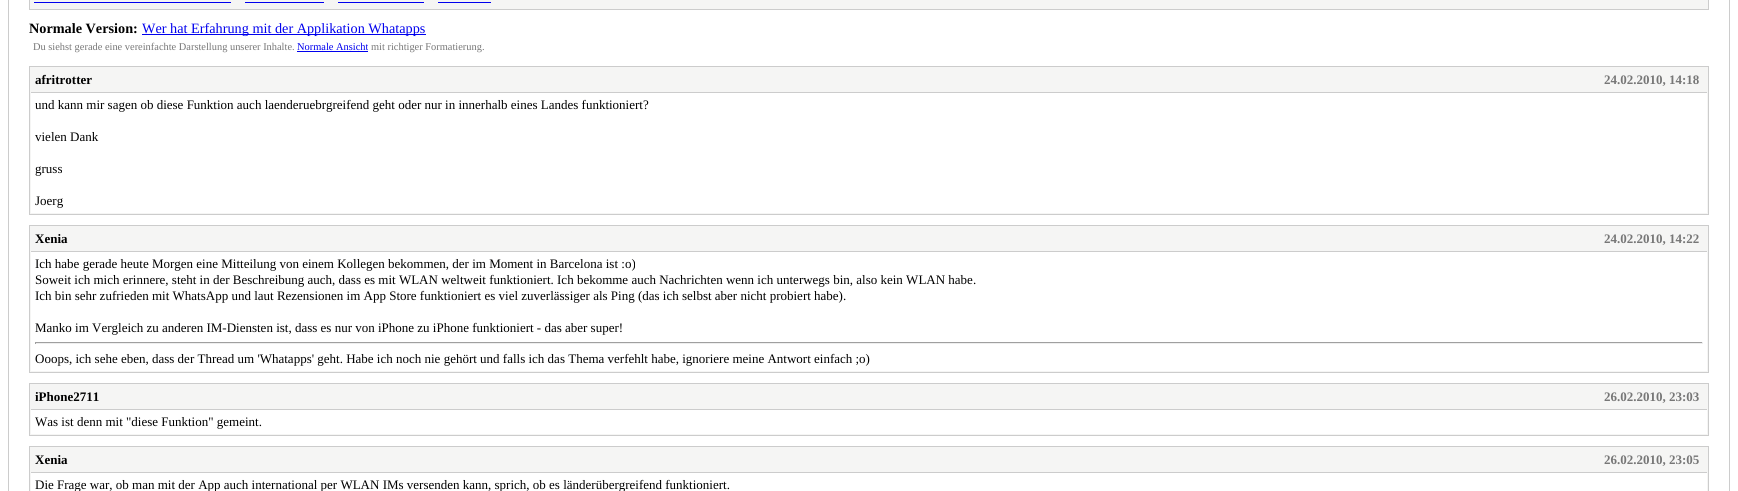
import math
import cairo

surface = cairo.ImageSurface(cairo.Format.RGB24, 1738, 491)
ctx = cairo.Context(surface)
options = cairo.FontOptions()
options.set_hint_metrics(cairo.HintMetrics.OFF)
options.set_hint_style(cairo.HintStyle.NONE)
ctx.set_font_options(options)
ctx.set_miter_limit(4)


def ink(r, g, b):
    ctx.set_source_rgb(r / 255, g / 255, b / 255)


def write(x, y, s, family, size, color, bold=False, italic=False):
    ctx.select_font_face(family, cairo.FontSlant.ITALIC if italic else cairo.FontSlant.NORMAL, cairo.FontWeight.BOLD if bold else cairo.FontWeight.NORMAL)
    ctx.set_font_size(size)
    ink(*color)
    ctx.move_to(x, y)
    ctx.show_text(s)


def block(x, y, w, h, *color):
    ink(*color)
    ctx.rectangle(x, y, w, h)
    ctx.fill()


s1 = dict(family="Liberation Serif", size=14.25, color=(0, 0, 0), bold=True)
s2 = dict(family="Liberation Serif", size=14.25, color=(0, 0, 238))
s3 = dict(family="Liberation Serif", size=10.4, color=(119, 119, 119))
s4 = dict(family="Liberation Serif", size=10.4, color=(0, 0, 238))
s5 = dict(family="Liberation Serif", size=13, color=(0, 0, 0), bold=True)
s6 = dict(family="Liberation Serif", size=13, color=(119, 119, 119), bold=True)
s7 = dict(family="Liberation Serif", size=13, color=(0, 0, 0))

ink(255, 255, 255)
ctx.paint()
ctx.rectangle(8.5, -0.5, 1721, 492)
ink(204, 204, 204)
ctx.set_line_width(1)
ctx.stroke()
ink(245, 245, 244)
ctx.rectangle(29.5, -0.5, 1679, 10)
ctx.fill_preserve()
ink(204, 204, 204)
ctx.stroke()
block(34, 2, 197, 1, 0, 0, 238)
block(245, 2, 79, 1, 0, 0, 238)
block(338, 2, 86, 1, 0, 0, 238)
block(438, 2, 53, 1, 0, 0, 238)
write(29, 33, "Normale Version:", **s1)
block(142, 34, 284, 1, 0, 0, 238)
write(142, 33, "Wer hat Erfahrung mit der Applikation Whatapps", **s2)
write(33, 50, "Du siehst gerade eine vereinfachte Darstellung unserer Inhalte.", **s3)
write(297, 50, "Normale Ansicht", **s4)
block(297, 51, 71, 1, 0, 0, 238)
write(371, 50, "mit richtiger Formatierung.", **s3)
ink(245, 245, 244)
ctx.rectangle(29.5, 66.5, 1679, 148)
ctx.fill_preserve()
ink(204, 204, 204)
ctx.stroke()
block(31, 92, 1676, 1, 204, 204, 204)
write(35, 84, "afritrotter", **s5)
write(1604, 84, "24.02.2010, 14:18", **s6)
block(31, 93, 1676, 120, 255, 255, 255)
write(35, 109, "und kann mir sagen ob diese Funktion auch laenderuebrgreifend geht oder nur in innerhalb eines Landes funktioniert?", **s7)
write(35, 141, "vielen Dank", **s7)
write(35, 173, "gruss", **s7)
write(35, 205, "Joerg", **s7)
ink(245, 245, 244)
ctx.rectangle(29.5, 225.5, 1679, 147)
ctx.fill_preserve()
ink(204, 204, 204)
ctx.stroke()
block(31, 251, 1676, 1, 204, 204, 204)
write(35, 243, "Xenia", **s5)
write(1604, 243, "24.02.2010, 14:22", **s6)
block(31, 252, 1676, 119, 255, 255, 255)
write(35, 268, "Ich habe gerade heute Morgen eine Mitteilung von einem Kollegen bekommen, der im Moment in Barcelona ist :o)", **s7)
write(35, 284, "Soweit ich mich erinnere, steht in der Beschreibung auch, dass es mit WLAN weltweit funktioniert. Ich bekomme auch Nachrichten wenn ich unterwegs bin, also kein WLAN habe.", **s7)
write(35, 300, "Ich bin sehr zufrieden mit WhatsApp und laut Rezensionen im App Store funktioniert es viel zuverlässiger als Ping (das ich selbst aber nicht probiert habe).", **s7)
write(35, 332, "Manko im Vergleich zu anderen IM-Diensten ist, dass es nur von iPhone zu iPhone funktioniert - das aber super!", **s7)
block(35, 342, 1668, 1, 159, 159, 159)
block(1702, 342, 1, 2, 238, 238, 238)
block(35, 343, 1668, 1, 238, 238, 238)
block(35, 342, 1, 2, 159, 159, 159)
write(35, 363, "Ooops, ich sehe eben, dass der Thread um 'Whatapps' geht. Habe ich noch nie gehört und falls ich das Thema verfehlt habe, ignoriere meine Antwort einfach ;o)", **s7)
ink(245, 245, 244)
ctx.rectangle(29.5, 383.5, 1679, 52)
ctx.fill_preserve()
ink(204, 204, 204)
ctx.stroke()
block(31, 409, 1676, 1, 204, 204, 204)
write(35, 401, "iPhone2711", **s5)
write(1604, 401, "26.02.2010, 23:03", **s6)
block(31, 410, 1676, 24, 255, 255, 255)
write(35, 426, "Was ist denn mit \"diese Funktion\" gemeint.", **s7)
ink(245, 245, 244)
ctx.rectangle(29.5, 446.5, 1679, 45)
ctx.fill_preserve()
ink(204, 204, 204)
ctx.stroke()
block(31, 472, 1676, 1, 204, 204, 204)
write(35, 464, "Xenia", **s5)
write(1604, 464, "26.02.2010, 23:05", **s6)
block(31, 473, 1676, 18, 255, 255, 255)
write(35, 489, "Die Frage war, ob man mit der App auch international per WLAN IMs versenden kann, sprich, ob es länderübergreifend funktioniert.", **s7)
surface.write_to_png("screenshot.png")
